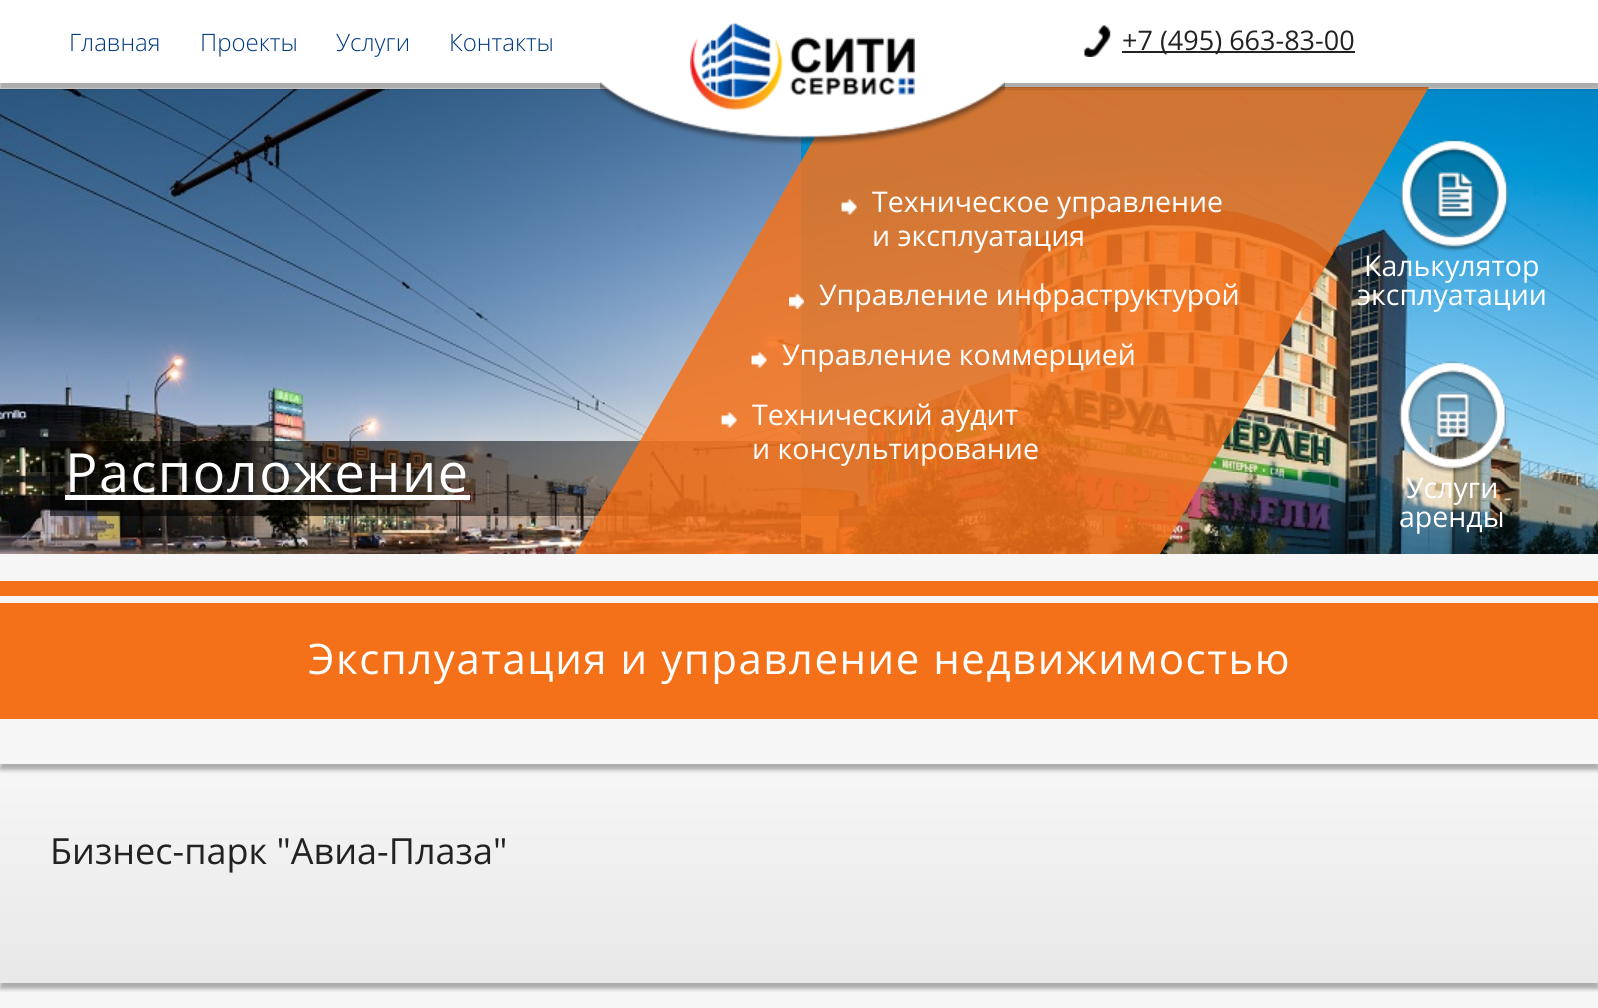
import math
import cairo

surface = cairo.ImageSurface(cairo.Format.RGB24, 1598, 1008)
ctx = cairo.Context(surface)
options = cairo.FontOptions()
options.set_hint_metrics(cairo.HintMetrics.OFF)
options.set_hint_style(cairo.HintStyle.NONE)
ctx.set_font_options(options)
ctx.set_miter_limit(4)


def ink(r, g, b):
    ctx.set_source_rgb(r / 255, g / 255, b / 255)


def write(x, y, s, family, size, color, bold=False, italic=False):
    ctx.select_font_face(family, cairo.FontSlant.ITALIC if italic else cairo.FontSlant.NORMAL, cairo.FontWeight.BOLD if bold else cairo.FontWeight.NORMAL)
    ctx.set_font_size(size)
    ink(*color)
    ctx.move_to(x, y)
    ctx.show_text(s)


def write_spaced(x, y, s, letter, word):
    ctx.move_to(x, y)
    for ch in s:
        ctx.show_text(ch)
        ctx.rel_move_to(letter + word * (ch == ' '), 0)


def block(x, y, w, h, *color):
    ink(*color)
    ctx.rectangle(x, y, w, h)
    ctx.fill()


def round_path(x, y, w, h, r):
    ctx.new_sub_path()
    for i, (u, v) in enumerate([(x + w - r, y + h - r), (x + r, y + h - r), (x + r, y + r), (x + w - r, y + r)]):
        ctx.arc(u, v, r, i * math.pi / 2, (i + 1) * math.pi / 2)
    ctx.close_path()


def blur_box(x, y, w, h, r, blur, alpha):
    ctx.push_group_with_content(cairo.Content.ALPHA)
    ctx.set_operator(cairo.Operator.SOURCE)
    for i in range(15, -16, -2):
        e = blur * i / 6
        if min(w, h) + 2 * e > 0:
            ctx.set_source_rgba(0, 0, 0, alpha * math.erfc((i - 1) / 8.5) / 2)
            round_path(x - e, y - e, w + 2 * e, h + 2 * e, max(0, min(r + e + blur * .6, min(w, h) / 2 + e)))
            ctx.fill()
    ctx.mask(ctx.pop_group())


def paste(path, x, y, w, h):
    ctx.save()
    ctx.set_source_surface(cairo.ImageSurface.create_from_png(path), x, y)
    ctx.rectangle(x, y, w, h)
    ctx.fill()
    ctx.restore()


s1 = dict(family="Open Sans", size=28.5, color=(255, 255, 255))
s2 = dict(family="Open Sans Light", size=24, color=(0, 58, 131))
s3 = dict(family="Open Sans", size=27, color=(34, 34, 34))
s4 = dict(family="Open Sans", size=36, color=(34, 34, 34))

ink(246, 246, 246)
ctx.paint()
paste("pic4.png", 0, 89, 801, 465)
paste("pic5.png", 801, 89, 797, 465)
gradient = cairo.LinearGradient(50, 479, 1370, 479)
gradient.add_color_stop_rgba(0, 0, 0, 0, 0.6)
gradient.add_color_stop_rgba(0.25, 0, 0, 0, 0.6)
gradient.add_color_stop_rgba(1, 0, 0, 0, 0)
ctx.set_source(gradient)
ctx.rectangle(50, 441, 1284, 75)
ctx.fill()
paste("pic10.png", 1399, 139, 111, 113)
write(1364, 276, "Калькулятор", **s1)
write(1357, 305, "эксплуатации", **s1)
paste("pic11.png", 1398, 361, 111, 113)
write(1406, 498, "Услуги", **s1)
write(1399, 527, "аренды", **s1)
ctx.set_source_rgba(0.957, 0.443, 0.098, 0.85)
ctx.new_path()
ctx.move_to(844, 87)
ctx.line_to(1429, 87)
ctx.line_to(1160, 554)
ctx.line_to(575, 554)
ctx.close_path()
ctx.fill()
ink(0, 0, 0)
blur_box(0, 6, 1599, 83, 0, 1, 0.3)
block(0, 0, 1598, 83, 255, 255, 255)
write(69, 51, "Главная", **s2)
write(200, 51, "Проекты", **s2)
write(336, 51, "Услуги", **s2)
write(449, 51, "Контакты", **s2)
paste("pic1.png", 600, 82, 405, 64)
paste("pic2.png", 690, 22, 225, 88)
paste("pic3.png", 1084, 25, 27, 32)
block(1122, 51, 233, 2, 34, 34, 34)
write(1122, 50, "+7 (495) 663-83-00", **s3)
ctx.set_font_size(54)
ink(255, 255, 255)
write_spaced(65, 492, "Расположение", 1.5, 0)
block(65, 495, 405, 5, 255, 255, 255)
paste("pic6.png", 841, 199, 16, 16)
write(872, 212, "Техническое управление", **s1)
write(872, 246, "и эксплуатация", **s1)
paste("pic7.png", 789, 293, 16, 16)
write(819, 305, "Управление инфраструктурой", **s1)
paste("pic8.png", 751, 352, 16, 16)
write(782, 365, "Управление коммерцией", **s1)
paste("pic9.png", 721, 412, 16, 16)
write(752, 425, "Технический аудит", **s1)
write(752, 459, "и консультирование", **s1)
ink(0, 0, 0)
blur_box(0, 770, 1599, 219, 0, 2, 0.3)
gradient = cairo.LinearGradient(800, 763, 800, 983)
gradient.add_color_stop_rgba(0, 0.965, 0.965, 0.965, 1)
gradient.add_color_stop_rgba(1, 0.91, 0.91, 0.91, 1)
ctx.set_source(gradient)
ctx.rectangle(0, 766, 1598, 217)
ctx.fill()
ctx.save()
ctx.set_fill_rule(cairo.FillRule.EVEN_ODD)
ctx.new_path()
ctx.move_to(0, 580)
ctx.line_to(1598, 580)
ctx.line_to(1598, 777)
ctx.line_to(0, 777)
ctx.close_path()
ctx.move_to(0, 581)
ctx.line_to(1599, 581)
ctx.line_to(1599, 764)
ctx.line_to(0, 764)
ctx.close_path()
ctx.clip()
ink(0, 0, 0)
blur_box(0, 587, 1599, 183, 0, 2, 0.3)
ctx.restore()
block(0, 581, 1598, 15, 244, 113, 25)
block(0, 603, 1598, 116, 244, 113, 25)
ctx.set_font_size(42)
ink(255, 255, 255)
write_spaced(308, 674, "Эксплуатация и управление недвижимостью", 1.5, 0)
write(50, 864, "Бизнес-парк \"Авиа-Плаза\"", **s4)
surface.write_to_png("screenshot.png")
